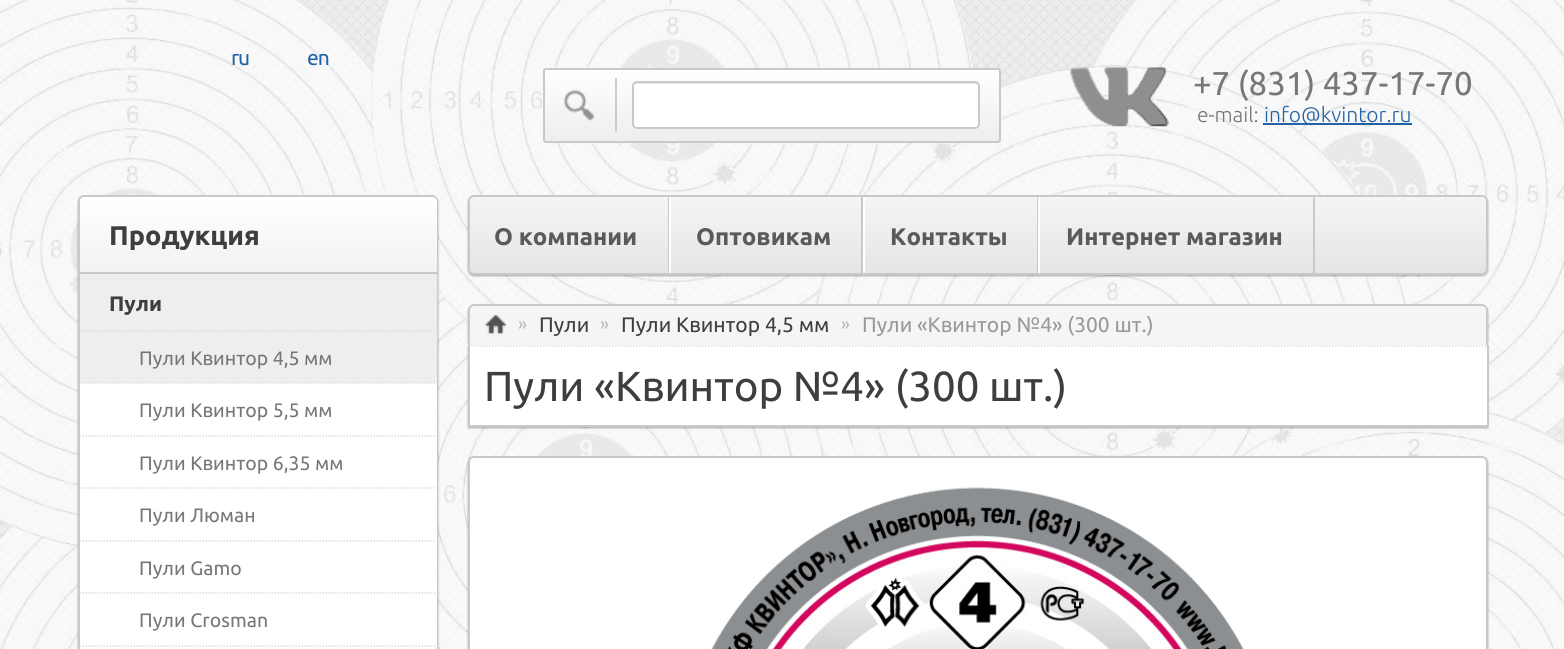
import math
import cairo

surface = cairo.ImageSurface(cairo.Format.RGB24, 1564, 649)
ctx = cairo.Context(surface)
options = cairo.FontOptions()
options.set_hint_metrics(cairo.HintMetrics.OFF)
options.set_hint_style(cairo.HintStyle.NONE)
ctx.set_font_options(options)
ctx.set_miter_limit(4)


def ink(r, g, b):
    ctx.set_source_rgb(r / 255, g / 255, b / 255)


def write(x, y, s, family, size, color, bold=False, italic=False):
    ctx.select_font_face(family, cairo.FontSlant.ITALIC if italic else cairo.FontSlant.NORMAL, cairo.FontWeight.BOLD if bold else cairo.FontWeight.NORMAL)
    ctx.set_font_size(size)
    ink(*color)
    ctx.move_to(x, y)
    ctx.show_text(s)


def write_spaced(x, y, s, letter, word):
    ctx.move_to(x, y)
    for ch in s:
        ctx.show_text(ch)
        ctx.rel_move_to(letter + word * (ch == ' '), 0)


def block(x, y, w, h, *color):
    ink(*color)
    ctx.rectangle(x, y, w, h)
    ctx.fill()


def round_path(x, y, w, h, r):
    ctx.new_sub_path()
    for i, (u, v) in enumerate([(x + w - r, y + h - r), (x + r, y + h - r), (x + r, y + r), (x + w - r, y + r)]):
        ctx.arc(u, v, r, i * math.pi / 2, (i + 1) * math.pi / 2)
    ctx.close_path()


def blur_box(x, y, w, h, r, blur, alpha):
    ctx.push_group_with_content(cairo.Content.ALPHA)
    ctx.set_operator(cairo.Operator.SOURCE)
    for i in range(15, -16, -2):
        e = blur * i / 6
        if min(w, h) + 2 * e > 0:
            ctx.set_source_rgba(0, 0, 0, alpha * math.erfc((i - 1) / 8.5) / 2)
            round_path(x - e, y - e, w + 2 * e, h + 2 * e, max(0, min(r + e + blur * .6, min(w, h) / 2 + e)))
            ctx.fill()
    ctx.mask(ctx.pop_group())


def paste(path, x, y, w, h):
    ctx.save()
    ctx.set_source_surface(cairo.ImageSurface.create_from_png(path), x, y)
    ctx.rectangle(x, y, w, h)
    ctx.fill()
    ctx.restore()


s1 = dict(family="Ubuntu", size=33, color=(119, 119, 119))
s2 = dict(family="Ubuntu Light", size=21, color=(119, 119, 119))
s3 = dict(family="Ubuntu Light", size=21, color=(34, 99, 165))
s4 = dict(family="Ubuntu", size=27, color=(62, 62, 62), bold=True)
s5 = dict(family="Ubuntu", size=21, color=(62, 62, 62), bold=True)
s6 = dict(family="Ubuntu", size=19.5, color=(119, 119, 119))
s7 = dict(family="Ubuntu", size=24, color=(90, 90, 90), bold=True)
s8 = dict(family="Ubuntu", size=18, color=(187, 187, 187))
s9 = dict(family="Ubuntu", size=21, color=(62, 62, 62))
s10 = dict(family="Ubuntu", size=21, color=(153, 153, 153))
s11 = dict(family="Ubuntu", size=42, color=(62, 62, 62))

ink(255, 255, 255)
ctx.paint()
paste("pic1.png", 0, 0, 1564, 649)
ctx.select_font_face("Ubuntu")
ctx.set_font_size(21)
ink(34, 99, 165)
write_spaced(231, 65, "ru", -1, 0)
write_spaced(307, 65, "en", -1, 0)
ctx.save()
round_path(543, 68, 458, 75, 3)
ctx.clip()
gradient = cairo.LinearGradient(772, 69, 772, 141)
gradient.add_color_stop_rgba(0, 1, 1, 1, 1)
gradient.add_color_stop_rgba(1, 0.933, 0.933, 0.933, 1)
ctx.set_source(gradient)
ctx.rectangle(543, 69, 458, 72)
ctx.fill()
ctx.restore()
round_path(544, 69, 456, 73, 2)
ink(201, 201, 201)
ctx.stroke()
paste("pic2.png", 563, 89, 32, 32)
block(615, 78, 2, 54, 204, 204, 204)
ink(255, 255, 255)
round_path(632, 81, 348, 48, 5)
ctx.fill()
ink(230, 230, 230)
ctx.new_path()
ctx.move_to(636, 84)
ctx.line_to(975, 84)
ctx.curve_to(977, 84, 978, 85, 978, 87)
ctx.curve_to(978, 85, 977, 83, 975, 83)
ctx.line_to(636, 83)
ctx.line_to(634, 84)
ctx.line_to(633, 87)
ctx.curve_to(633, 85, 634, 84, 636, 84)
ctx.close_path()
ctx.fill()
round_path(633, 82, 346, 46, 4)
ink(201, 201, 201)
ctx.stroke()
paste("pic3.png", 1069, 67, 100, 60)
write(1193, 95, "+7 (831) 437-17-70", **s1)
write(1197, 122, "e-mail:", **s2)
block(1263, 123, 149, 2, 34, 99, 165)
write(1264, 122, "info@kvintor.ru", **s3)
ink(0, 0, 0)
blur_box(78, 197, 360, 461, 6, 1, 0.33)
ink(255, 255, 255)
round_path(79, 196, 358, 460, 5)
ctx.fill_preserve()
ink(201, 201, 201)
ctx.stroke()
gradient = cairo.LinearGradient(258, 197, 258, 272)
gradient.add_color_stop_rgba(0, 1, 1, 1, 1)
gradient.add_color_stop_rgba(1, 0.949, 0.949, 0.949, 1)
ctx.set_source(gradient)
ctx.new_path()
ctx.move_to(85, 197)
ctx.line_to(432, 197)
ctx.curve_to(435, 197, 437, 199, 437, 202)
ctx.line_to(437, 272)
ctx.line_to(80, 272)
ctx.line_to(80, 202)
ctx.curve_to(80, 199, 82, 197, 85, 197)
ctx.close_path()
ctx.fill()
block(80, 272, 357, 2, 201, 201, 201)
write(109, 245, "Продукция", **s4)
block(80, 274, 357, 109, 238, 238, 238)
write(109, 311, "Пули", **s5)
ctx.new_path()
ctx.move_to(79.5, 331)
ctx.line_to(436.5, 331)
ink(221, 221, 221)
ctx.set_line_width(1.5)
ctx.set_dash([1.5, 1.5])
ctx.stroke()
write(139, 365, "Пули Квинтор 4,5 мм", **s6)
block(436, 383, 1, 266, 255, 255, 255)
ctx.new_path()
ctx.move_to(79.5, 383)
ctx.line_to(436.5, 383)
ink(221, 221, 221)
ctx.stroke()
write(139, 417, "Пули Квинтор 5,5 мм", **s6)
ctx.new_path()
ctx.move_to(79.5, 436)
ctx.line_to(436.5, 436)
ink(221, 221, 221)
ctx.stroke()
write(139, 470, "Пули Квинтор 6,35 мм", **s6)
ctx.new_path()
ctx.move_to(79.5, 488)
ctx.line_to(436.5, 488)
ink(221, 221, 221)
ctx.stroke()
write(139, 522, "Пули Люман", **s6)
ctx.new_path()
ctx.move_to(79.5, 541)
ctx.line_to(436.5, 541)
ink(221, 221, 221)
ctx.stroke()
write(139, 575, "Пули Gamo", **s6)
ctx.new_path()
ctx.move_to(79.5, 593)
ctx.line_to(436.5, 593)
ink(221, 221, 221)
ctx.stroke()
write(139, 627, "Пули Crosman", **s6)
ctx.new_path()
ctx.move_to(79.5, 646)
ctx.line_to(436.5, 646)
ink(221, 221, 221)
ctx.stroke()
ink(0, 0, 0)
blur_box(468, 197, 1020, 79, 6, 1, 0.33)
ctx.save()
round_path(468, 195, 1020, 80, 6)
ctx.clip()
gradient = cairo.LinearGradient(978, 196, 978, 273)
gradient.add_color_stop_rgba(0, 0.961, 0.961, 0.961, 1)
gradient.add_color_stop_rgba(1, 0.898, 0.898, 0.898, 1)
ctx.set_source(gradient)
ctx.rectangle(468, 197, 1020, 76)
ctx.fill()
ctx.restore()
round_path(469, 196, 1018, 78, 5)
ink(201, 201, 201)
ctx.set_line_width(2)
ctx.set_dash([])
ctx.stroke()
block(668, 197, 1, 76, 201, 201, 201)
write(494, 245, "О компании", **s7)
block(861, 197, 2, 76, 201, 201, 201)
block(669, 197, 2, 76, 255, 255, 255)
write(696, 245, "Оптовикам", **s7)
block(1037, 197, 1, 76, 201, 201, 201)
block(863, 197, 2, 76, 255, 255, 255)
write(890, 245, "Контакты", **s7)
block(1313, 197, 2, 76, 201, 201, 201)
block(1038, 197, 2, 76, 255, 255, 255)
write(1066, 245, "Интернет магазин", **s7)
ink(0, 0, 0)
blur_box(468, 306, 1020, 41, 6, 1, 0.33)
ink(245, 245, 245)
ctx.new_path()
ctx.move_to(474, 305)
ctx.line_to(1482, 305)
ctx.curve_to(1485.5, 305, 1488, 307.5, 1488, 311)
ctx.line_to(1488, 345)
ctx.line_to(468, 345)
ctx.line_to(468, 311)
ctx.curve_to(468, 307.5, 470.5, 305, 474, 305)
ctx.close_path()
ctx.fill()
ink(201, 201, 201)
ctx.set_fill_rule(cairo.FillRule.EVEN_ODD)
ctx.new_path()
ctx.move_to(474, 304)
ctx.line_to(1482, 304)
ctx.curve_to(1485, 304, 1488, 307, 1488, 310)
ctx.line_to(1488, 345)
ctx.line_to(468, 345)
ctx.line_to(468, 310)
ctx.curve_to(468, 307, 471, 304, 474, 304)
ctx.close_path()
ctx.move_to(474, 306)
ctx.line_to(1482, 306)
ctx.curve_to(1484, 306, 1486, 308, 1486, 310)
ctx.line_to(1486, 345)
ctx.line_to(470, 345)
ctx.line_to(470, 310)
ctx.curve_to(470, 308, 472, 306, 474, 306)
ctx.close_path()
ctx.fill()
paste("pic4.png", 484, 314, 23, 21)
write(518, 330, "»", **s8)
write(539, 332, "Пули", **s9)
write(600, 330, "»", **s8)
write(621, 332, "Пули Квинтор 4,5 мм", **s9)
write(841, 330, "»", **s8)
write(862, 332, "Пули «Квинтор №4» (300 шт.)", **s10)
ink(0, 0, 0)
blur_box(468, 347, 1020, 81, 0, 1, 0.33)
block(470, 345, 1017, 80, 255, 255, 255)
ctx.new_path()
ctx.move_to(468, 346)
ctx.line_to(1488, 346)
ink(221, 221, 221)
ctx.set_line_width(1.5)
ctx.set_dash([1.5, 1.5])
ctx.stroke()
block(1487, 345, 2, 81, 201, 201, 201)
block(468, 425, 1020, 2, 201, 201, 201)
block(468, 345, 2, 81, 201, 201, 201)
write(484, 401, "Пули «Квинтор №4» (300 шт.)", **s11)
ink(0, 0, 0)
blur_box(468, 458, 1020, 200, 6, 1, 0.33)
ink(255, 255, 255)
round_path(469, 457, 1018, 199, 5)
ctx.fill_preserve()
ink(201, 201, 201)
ctx.set_line_width(2)
ctx.set_dash([])
ctx.stroke()
paste("pic5.png", 711, 487, 533, 162)
surface.write_to_png("screenshot.png")
